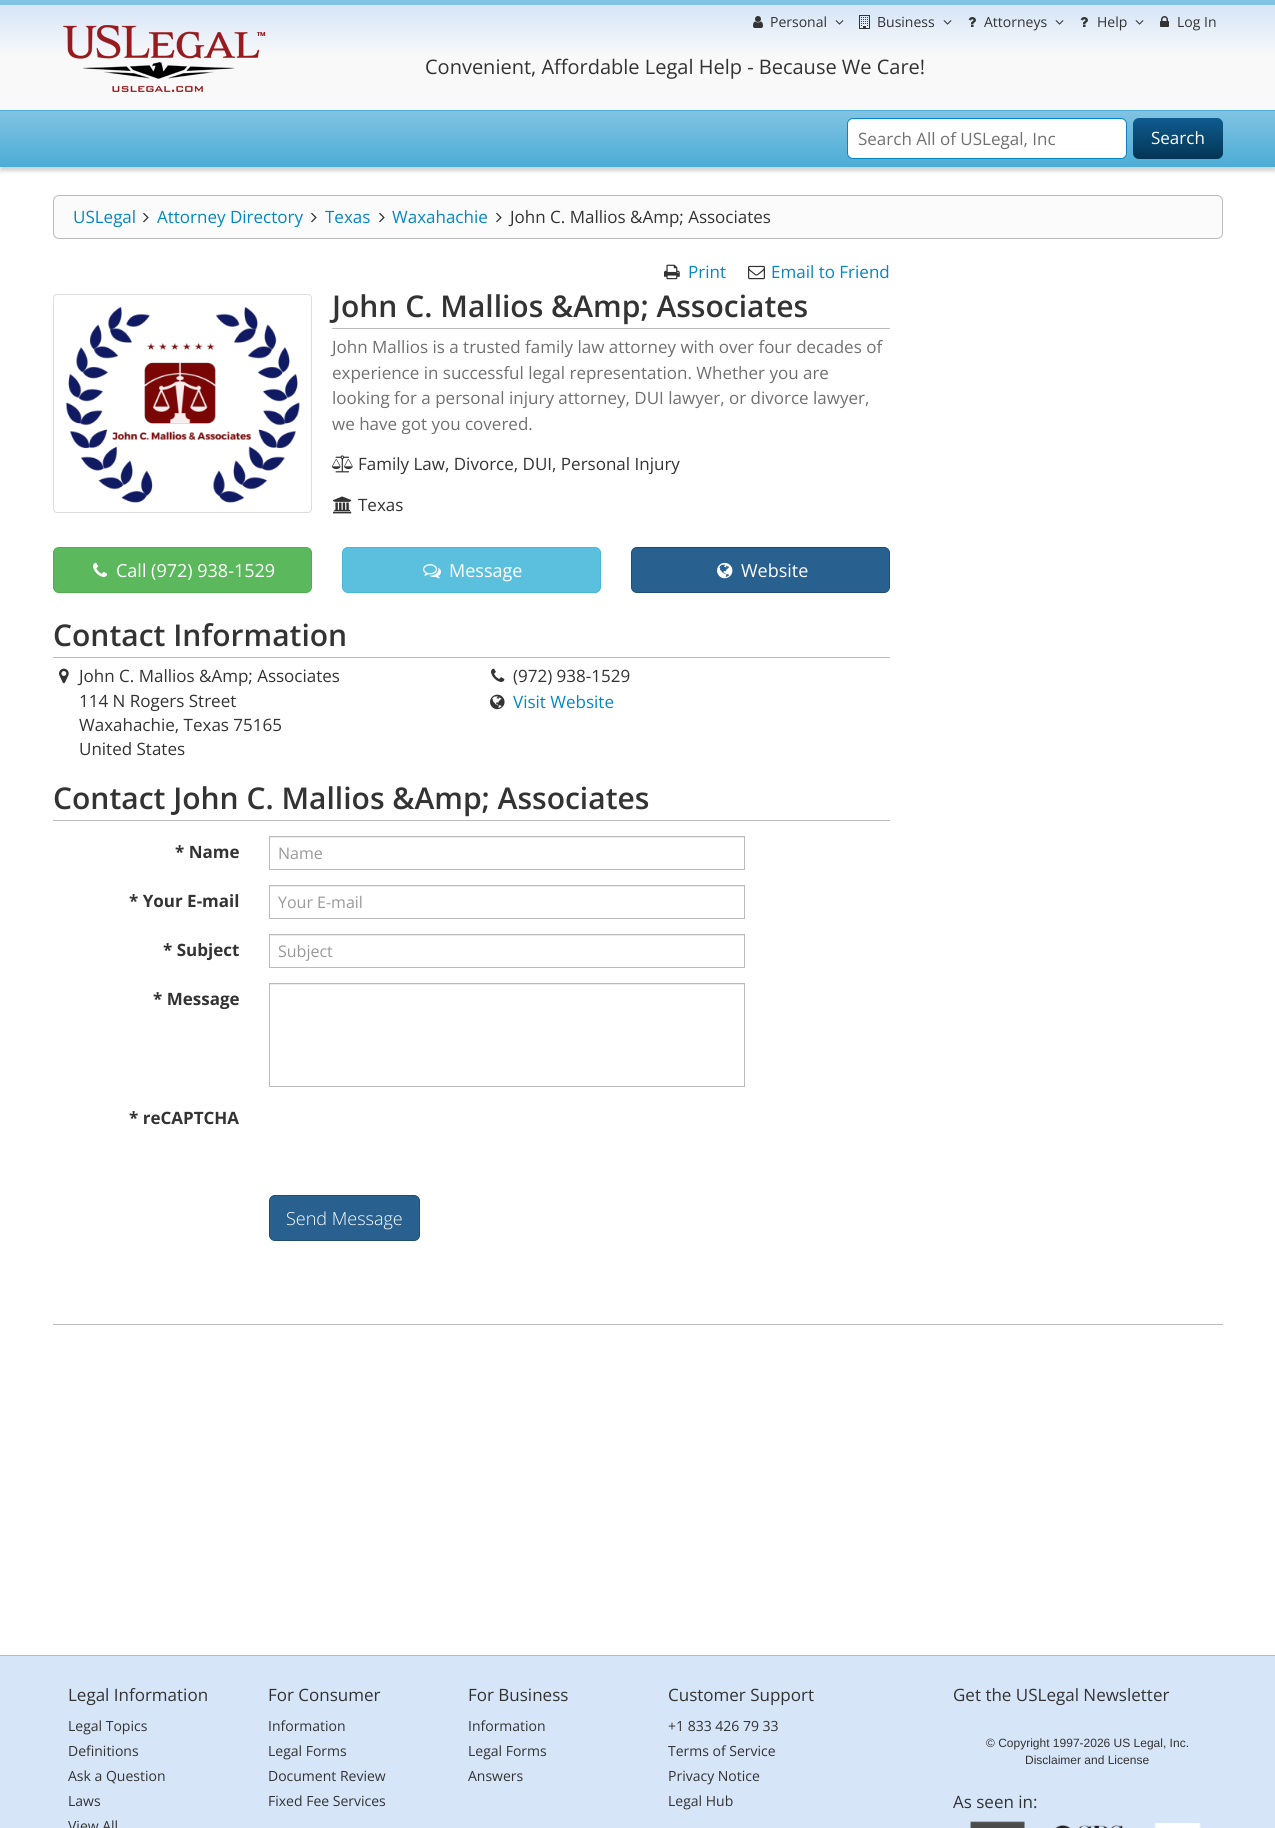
import math
import cairo

surface = cairo.ImageSurface(cairo.Format.RGB24, 1275, 1828)
ctx = cairo.Context(surface)
options = cairo.FontOptions()
options.set_hint_metrics(cairo.HintMetrics.OFF)
options.set_hint_style(cairo.HintStyle.NONE)
ctx.set_font_options(options)
ctx.set_miter_limit(4)


def ink(r, g, b):
    ctx.set_source_rgb(r / 255, g / 255, b / 255)


def write(x, y, s, family, size, color, bold=False, italic=False):
    ctx.select_font_face(family, cairo.FontSlant.ITALIC if italic else cairo.FontSlant.NORMAL, cairo.FontWeight.BOLD if bold else cairo.FontWeight.NORMAL)
    ctx.set_font_size(size)
    ink(*color)
    ctx.move_to(x, y)
    ctx.show_text(s)


def block(x, y, w, h, *color):
    ink(*color)
    ctx.rectangle(x, y, w, h)
    ctx.fill()


def round_path(x, y, w, h, r):
    ctx.new_sub_path()
    for i, (u, v) in enumerate([(x + w - r, y + h - r), (x + r, y + h - r), (x + r, y + r), (x + w - r, y + r)]):
        ctx.arc(u, v, r, i * math.pi / 2, (i + 1) * math.pi / 2)
    ctx.close_path()


def blur_box(x, y, w, h, r, blur, alpha):
    ctx.push_group_with_content(cairo.Content.ALPHA)
    ctx.set_operator(cairo.Operator.SOURCE)
    for i in range(15, -16, -2):
        e = blur * i / 6
        if min(w, h) + 2 * e > 0:
            ctx.set_source_rgba(0, 0, 0, alpha * math.erfc((i - 1) / 8.5) / 2)
            round_path(x - e, y - e, w + 2 * e, h + 2 * e, max(0, min(r + e + blur * .6, min(w, h) / 2 + e)))
            ctx.fill()
    ctx.mask(ctx.pop_group())


def paste(path, x, y, w, h):
    ctx.save()
    ctx.set_source_surface(cairo.ImageSurface.create_from_png(path), x, y)
    ctx.rectangle(x, y, w, h)
    ctx.fill()
    ctx.restore()


s1 = dict(family="Open Sans", size=14, color=(51, 51, 51))
s2 = dict(family="Open Sans", size=20, color=(51, 51, 51))
s3 = dict(family="Open Sans", size=17, color=(112, 112, 112))
s4 = dict(family="Open Sans", size=17, color=(255, 255, 255))
s5 = dict(family="Open Sans", size=17, color=(4, 135, 196))
s6 = dict(family="Open Sans", size=17, color=(51, 51, 51))
s7 = dict(family="Open Sans SemiBold", size=30, color=(51, 51, 51))
s8 = dict(family="Open Sans", size=18, color=(255, 255, 255))
s9 = dict(family="Open Sans", size=17, color=(51, 51, 51), bold=True)
s10 = dict(family="Open Sans", size=16, color=(153, 153, 153))
s11 = dict(family="Open Sans Light", size=18, color=(255, 255, 255))
s12 = dict(family="Liberation Sans", size=12, color=(51, 51, 51))

ink(255, 255, 255)
ctx.paint()
gradient = cairo.LinearGradient(638, 5, 638, 110)
gradient.add_color_stop_rgba(0, 0.839, 0.898, 0.973, 1)
gradient.add_color_stop_rgba(0.5, 0.976, 0.976, 0.976, 1)
gradient.add_color_stop_rgba(1, 0.976, 0.976, 0.976, 1)
ctx.set_source(gradient)
ctx.rectangle(0, 5, 1275, 105)
ctx.fill()
block(0, 0, 1275, 5, 129, 195, 227)
paste("pic1.png", 63, 25, 203, 67)
paste("pic2.png", 753, 16, 10, 12)
write(770, 27, "Personal", **s1)
paste("pic3.png", 835, 20, 9, 5)
paste("pic4.png", 859, 15, 11, 14)
write(877, 27, "Business", **s1)
paste("pic3.png", 943, 20, 9, 5)
paste("pic5.png", 968, 17, 8, 10)
write(984, 27, "Attorneys", **s1)
paste("pic3.png", 1055, 20, 9, 5)
paste("pic5.png", 1080, 17, 8, 10)
write(1097, 27, "Help", **s1)
paste("pic3.png", 1135, 20, 9, 5)
paste("pic6.png", 1160, 16, 9, 11)
write(1177, 27, "Log In", **s1)
write(425, 74, "Convenient, Affordable Legal Help - Because We Care!", **s2)
ink(0, 0, 0)
blur_box(0, 114, 1275, 57, 0, 2, 0.18)
gradient = cairo.LinearGradient(638, 55, 638, 111)
gradient.add_color_stop_rgba(0, 0.506, 0.765, 0.89, 1)
gradient.add_color_stop_rgba(1, 0.298, 0.675, 0.839, 1)
ctx.set_source(gradient)
ctx.rectangle(0, 110, 1275, 1)
ctx.fill()
gradient = cairo.LinearGradient(638, 111, 638, 167)
gradient.add_color_stop_rgba(0, 0.506, 0.765, 0.89, 1)
gradient.add_color_stop_rgba(1, 0.298, 0.675, 0.839, 1)
ctx.set_source(gradient)
ctx.rectangle(0, 111, 1275, 56)
ctx.fill()
ink(255, 255, 255)
round_path(847.5, 118.5, 279, 40, 5.5)
ctx.fill_preserve()
ink(4, 135, 196)
ctx.set_line_width(1)
ctx.stroke()
write(858, 145, "Search All of USLegal, Inc", **s3)
gradient = cairo.LinearGradient(1178, 118, 1178, 159)
gradient.add_color_stop_rgba(0, 0.059, 0.357, 0.561, 1)
gradient.add_color_stop_rgba(1, 0.012, 0.208, 0.333, 1)
ctx.set_source(gradient)
round_path(1133, 118, 90, 41, 6)
ctx.fill()
write(1151, 144, "Search", **s4)
ink(251, 251, 251)
round_path(53.5, 195.5, 1169, 43, 5.5)
ctx.fill_preserve()
ink(187, 187, 187)
ctx.stroke()
write(73, 223, "USLegal", **s5)
paste("pic7.png", 143, 212, 6, 11)
write(157, 223, "Attorney Directory", **s5)
paste("pic7.png", 311, 212, 6, 11)
write(325, 223, "Texas", **s5)
paste("pic7.png", 379, 212, 6, 11)
write(392, 223, "Waxahachie", **s5)
paste("pic7.png", 496, 212, 6, 11)
write(510, 223, "John C. Mallios &Amp; Associates", **s6)
paste("pic8.png", 664, 264, 16, 16)
write(688, 278, "Print", **s5)
paste("pic9.png", 748, 265, 17, 15)
write(771, 278, "Email to Friend", **s5)
round_path(53.5, 294.5, 258, 218, 3.5)
ink(221, 221, 221)
ctx.stroke()
paste("pic10.png", 65, 307, 235, 196)
block(332, 328, 558, 1, 187, 187, 187)
write(332, 317, "John C. Mallios &Amp; Associates", **s7)
write(332, 353, "John Mallios is a trusted family law attorney with over four decades of", **s3)
write(332, 379, "experience in successful legal representation. Whether you are", **s3)
write(332, 404, "looking for a personal injury attorney, DUI lawyer, or divorce lawyer,", **s3)
write(332, 430, "we have got you covered.", **s3)
paste("pic11.png", 332, 455, 21, 18)
write(358, 470, "Family Law, Divorce, DUI, Personal Injury", **s6)
paste("pic12.png", 333, 496, 19, 18)
write(358, 511, "Texas", **s6)
ink(92, 184, 92)
round_path(53.5, 547.5, 258, 45, 5.5)
ctx.fill_preserve()
ink(76, 174, 76)
ctx.stroke()
paste("pic13.png", 93, 562, 15, 15)
write(116, 577, "Call (972) 938-1529", **s8)
ink(91, 192, 222)
round_path(342.5, 547.5, 258, 45, 5.5)
ctx.fill_preserve()
ink(70, 184, 218)
ctx.stroke()
paste("pic14.png", 423, 564, 18, 15)
write(449, 577, "Message", **s8)
ink(40, 96, 144)
round_path(631.5, 547.5, 258, 45, 5.5)
ctx.fill_preserve()
ink(32, 77, 116)
ctx.stroke()
paste("pic15.png", 717, 562, 16, 17)
write(741, 577, "Website", **s8)
block(53, 657, 837, 1, 187, 187, 187)
write(53, 646, "Contact Information", **s7)
paste("pic16.png", 59, 668, 10, 16)
write(79, 682, "John C. Mallios &Amp; Associates", **s6)
write(79, 707, "114 N Rogers Street", **s6)
write(79, 731, "Waxahachie, Texas 75165", **s6)
write(79, 755, "United States", **s6)
paste("pic17.png", 491, 668, 14, 14)
write(513, 682, "(972) 938-1529", **s6)
paste("pic18.png", 490, 694, 15, 16)
write(513, 708, "Visit Website", **s5)
block(53, 820, 837, 1, 187, 187, 187)
write(53, 809, "Contact John C. Mallios &Amp; Associates", **s7)
write(175, 858, "* Name", **s9)
block(270, 837, 474, 1, 236, 236, 236)
ctx.rectangle(269.5, 836.5, 475, 33)
ink(187, 187, 187)
ctx.stroke()
write(278, 859, "Name", **s10)
write(129, 907, "* Your E-mail", **s9)
block(270, 886, 474, 1, 236, 236, 236)
ctx.rectangle(269.5, 885.5, 475, 33)
ink(187, 187, 187)
ctx.stroke()
write(278, 908, "Your E-mail", **s10)
write(163, 956, "* Subject", **s9)
block(270, 935, 474, 1, 236, 236, 236)
ctx.rectangle(269.5, 934.5, 475, 33)
ink(187, 187, 187)
ctx.stroke()
write(278, 957, "Subject", **s10)
write(153, 1005, "* Message", **s9)
block(270, 984, 474, 1, 236, 236, 236)
ctx.rectangle(269.5, 983.5, 475, 103)
ink(187, 187, 187)
ctx.stroke()
write(129, 1124, "* reCAPTCHA", **s9)
ink(40, 96, 144)
round_path(269.5, 1195.5, 150, 45, 5.5)
ctx.fill_preserve()
ink(32, 77, 116)
ctx.stroke()
write(286, 1225, "Send Message", **s11)
block(53, 1324, 1170, 1, 187, 187, 187)
gradient = cairo.LinearGradient(638, 1656, 638, 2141)
gradient.add_color_stop_rgba(0, 0.839, 0.898, 0.973, 1)
gradient.add_color_stop_rgba(0.5, 0.839, 0.898, 0.973, 1)
gradient.add_color_stop_rgba(1, 0.976, 0.976, 0.976, 1)
ctx.set_source(gradient)
ctx.rectangle(0, 1656, 1275, 172)
ctx.fill()
block(0, 1655, 1275, 1, 187, 187, 187)
write(68, 1701, "Legal Information", **s6)
write(68, 1731, "Legal Topics", **s1)
write(68, 1756, "Definitions", **s1)
write(68, 1781, "Ask a Question", **s1)
write(68, 1806, "Laws", **s1)
write(68, 1831, "View All", **s1)
write(268, 1701, "For Consumer", **s6)
write(268, 1731, "Information", **s1)
write(268, 1756, "Legal Forms", **s1)
write(268, 1781, "Document Review", **s1)
write(268, 1806, "Fixed Fee Services", **s1)
write(468, 1701, "For Business", **s6)
write(468, 1731, "Information", **s1)
write(468, 1756, "Legal Forms", **s1)
write(468, 1781, "Answers", **s1)
write(668, 1701, "Customer Support", **s6)
write(668, 1731, "+1 833 426 79 33", **s1)
write(668, 1756, "Terms of Service", **s1)
write(668, 1781, "Privacy Notice", **s1)
write(668, 1806, "Legal Hub", **s1)
write(953, 1701, "Get the USLegal Newsletter", **s6)
write(986, 1747, "© Copyright 1997-2026 US Legal, Inc.", **s12)
write(1025, 1764, "Disclaimer and License", **s12)
write(953, 1808, "As seen in:", **s6)
paste("pic19.png", 970, 1821, 231, 7)
surface.write_to_png("screenshot.png")
